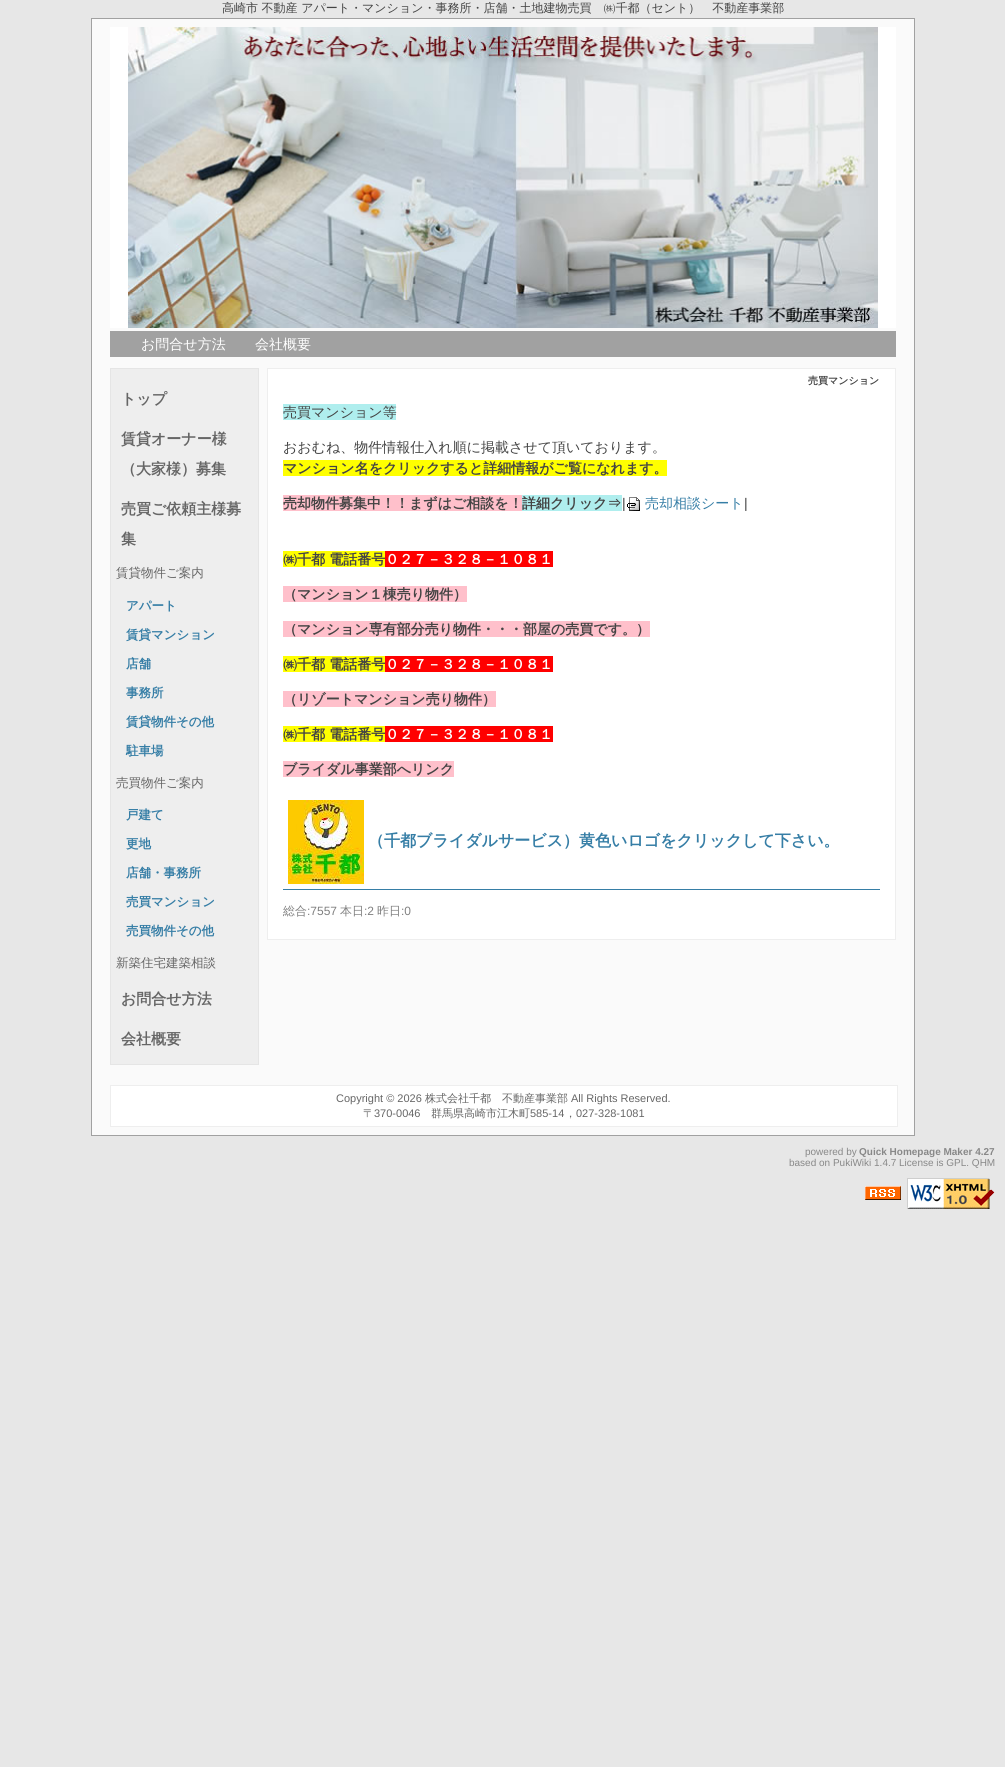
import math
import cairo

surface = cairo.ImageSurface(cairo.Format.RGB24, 1005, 1767)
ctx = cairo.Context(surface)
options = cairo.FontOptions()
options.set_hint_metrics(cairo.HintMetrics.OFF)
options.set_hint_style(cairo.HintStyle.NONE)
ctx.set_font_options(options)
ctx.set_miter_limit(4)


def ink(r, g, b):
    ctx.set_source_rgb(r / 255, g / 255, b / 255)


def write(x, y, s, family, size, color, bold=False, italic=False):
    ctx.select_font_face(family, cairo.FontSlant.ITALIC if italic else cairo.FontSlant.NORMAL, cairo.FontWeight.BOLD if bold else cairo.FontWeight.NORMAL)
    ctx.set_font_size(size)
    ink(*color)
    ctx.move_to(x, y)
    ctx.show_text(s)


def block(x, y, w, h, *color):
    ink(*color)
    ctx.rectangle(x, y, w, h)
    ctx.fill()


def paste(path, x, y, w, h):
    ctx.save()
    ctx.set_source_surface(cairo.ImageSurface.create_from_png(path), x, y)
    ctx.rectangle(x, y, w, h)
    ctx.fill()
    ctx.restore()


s1 = dict(family="WenQuanYi Zen Hei Medium", size=12, color=(68, 68, 68))
s2 = dict(family="WenQuanYi Zen Hei Medium", size=14, color=(255, 255, 255))
s3 = dict(family="WenQuanYi Zen Hei", size=15, color=(102, 102, 102), bold=True)
s4 = dict(family="WenQuanYi Zen Hei Medium", size=12.5, color=(102, 102, 102))
s5 = dict(family="WenQuanYi Zen Hei", size=12.5, color=(54, 126, 166), bold=True)
s6 = dict(family="WenQuanYi Zen Hei", size=10, color=(68, 68, 68), bold=True)
s7 = dict(family="WenQuanYi Zen Hei Medium", size=14, color=(68, 68, 68))
s8 = dict(family="WenQuanYi Zen Hei", size=14, color=(68, 68, 68), bold=True)
s9 = dict(family="Liberation Sans", size=14, color=(68, 68, 68))
s10 = dict(family="WenQuanYi Zen Hei Medium", size=14, color=(54, 126, 166))
s11 = dict(family="WenQuanYi Zen Hei", size=14, color=(255, 255, 255), bold=True)
s12 = dict(family="WenQuanYi Zen Hei", size=16, color=(54, 126, 166), bold=True)
s13 = dict(family="WenQuanYi Zen Hei Medium", size=12, color=(128, 128, 128))
s14 = dict(family="Liberation Sans", size=12, color=(128, 128, 128))
s15 = dict(family="Liberation Sans", size=11, color=(102, 102, 102))
s16 = dict(family="WenQuanYi Zen Hei Medium", size=11, color=(102, 102, 102))
s17 = dict(family="Liberation Sans", size=10, color=(136, 136, 136))
s18 = dict(family="Liberation Sans", size=10, color=(136, 136, 136), bold=True)

ink(231, 231, 231)
ctx.paint()
write(222, 12, "高崎市 不動産 アパート・マンション・事務所・店舗・土地建物売買　㈱千都（セント）　不動産事業部", **s1)
ink(250, 250, 250)
ctx.rectangle(91.5, 18.5, 823, 1117)
ctx.fill_preserve()
ink(161, 161, 161)
ctx.set_line_width(1)
ctx.stroke()
block(110, 27, 786, 301, 255, 255, 255)
paste("pic1.png", 128, 27, 750, 301)
block(110, 331, 786, 26, 161, 161, 161)
write(141, 349, "お問合せ方法", **s2)
write(255, 349, "会社概要", **s2)
ink(238, 238, 238)
ctx.rectangle(110.5, 368.5, 148, 696)
ctx.fill_preserve()
ink(229, 229, 229)
ctx.stroke()
write(121, 404, "トップ", **s3)
write(121, 444, "賃貸オーナー様", **s3)
write(121, 474, "（大家様）募集", **s3)
write(121, 514, "売買ご依頼主様募", **s3)
write(121, 544, "集", **s3)
write(116, 577, "賃貸物件ご案内", **s4)
write(126, 610, "アパート", **s5)
write(126, 639, "賃貸マンション", **s5)
write(126, 668, "店舗", **s5)
write(126, 697, "事務所", **s5)
write(126, 726, "賃貸物件その他", **s5)
write(126, 755, "駐車場", **s5)
write(116, 787, "売買物件ご案内", **s4)
write(126, 819, "戸建て", **s5)
write(126, 848, "更地", **s5)
write(126, 877, "店舗・事務所", **s5)
write(126, 906, "売買マンション", **s5)
write(126, 935, "売買物件その他", **s5)
write(116, 967, "新築住宅建築相談", **s4)
write(121, 1004, "お問合せ方法", **s3)
write(121, 1044, "会社概要", **s3)
ink(255, 255, 255)
ctx.rectangle(267.5, 368.5, 628, 571)
ctx.fill_preserve()
ink(238, 238, 238)
ctx.stroke()
write(808, 384, "売買マンション", **s6)
block(283, 404, 113, 16, 175, 238, 238)
write(283, 417, "売買マンション等", **s7)
write(283, 452, "おおむね、物件情報仕入れ順に掲載させて頂いております。", **s7)
block(283, 460, 384, 16, 255, 255, 0)
write(283, 473, "マンション名をクリックすると詳細情報がご覧になれます。", **s8)
block(283, 495, 239, 16, 255, 192, 203)
write(283, 508, "売却物件募集中！！まずはご相談を！", **s8)
block(522, 495, 100, 16, 175, 238, 238)
write(522, 508, "詳細クリック⇒", **s8)
write(622, 508, "|", **s9)
paste("pic2.png", 627, 497, 13, 14)
write(645, 508, "売却相談シート", **s10)
write(744, 508, "|", **s9)
block(283, 551, 102, 16, 255, 255, 0)
write(283, 564, "㈱千都 電話番号", **s8)
block(385, 551, 168, 16, 255, 0, 0)
write(385, 564, "０２７－３２８－１０８１", **s11)
block(283, 586, 184, 16, 255, 192, 203)
write(283, 599, "（マンション１棟売り物件）", **s8)
block(283, 621, 367, 16, 255, 192, 203)
write(283, 634, "（マンション専有部分売り物件・・・部屋の売買です。）", **s8)
block(283, 656, 102, 16, 255, 255, 0)
write(283, 669, "㈱千都 電話番号", **s8)
block(385, 656, 168, 16, 255, 0, 0)
write(385, 669, "０２７－３２８－１０８１", **s11)
block(283, 691, 213, 16, 255, 192, 203)
write(283, 704, "（リゾートマンション売り物件）", **s8)
block(283, 726, 102, 16, 255, 255, 0)
write(283, 739, "㈱千都 電話番号", **s8)
block(385, 726, 168, 16, 255, 0, 0)
write(385, 739, "０２７－３２８－１０８１", **s11)
block(283, 761, 171, 16, 255, 192, 203)
write(283, 774, "ブライダル事業部へリンク", **s8)
block(283, 889, 597, 1, 54, 126, 166)
paste("pic3.png", 288, 800, 76, 84)
write(368, 846, "（千都ブライダルサービス）黄色いロゴをクリックして下さい。", **s12)
write(283, 915, "総合", **s13)
write(307, 915, ":7557", **s14)
write(340, 915, "本日", **s13)
write(364, 915, ":2", **s14)
write(377, 915, "昨日", **s13)
write(401, 915, ":0", **s14)
ink(255, 255, 255)
ctx.rectangle(110.5, 1085.5, 787, 41)
ctx.fill_preserve()
ink(238, 238, 238)
ctx.stroke()
write(336, 1102, "Copyright © 2026", **s15)
write(425, 1102, "株式会社千都　不動産事業部", **s16)
write(571, 1102, "All Rights Reserved.", **s15)
write(363, 1117, "〒", **s16)
write(374, 1117, "370-0046", **s15)
write(431, 1117, "群馬県高崎市江木町", **s16)
write(530, 1117, "585-14", **s15)
write(565, 1117, "，", **s16)
write(576, 1117, "027-328-1081", **s15)
write(805, 1155, "powered by", **s17)
write(859, 1155, "Quick Homepage Maker 4.27", **s18)
write(789, 1166, "based on PukiWiki 1.4.7 License is GPL. QHM", **s17)
paste("pic4.png", 865, 1186, 36, 14)
paste("pic5.png", 907, 1178, 88, 31)
surface.write_to_png("screenshot.png")
